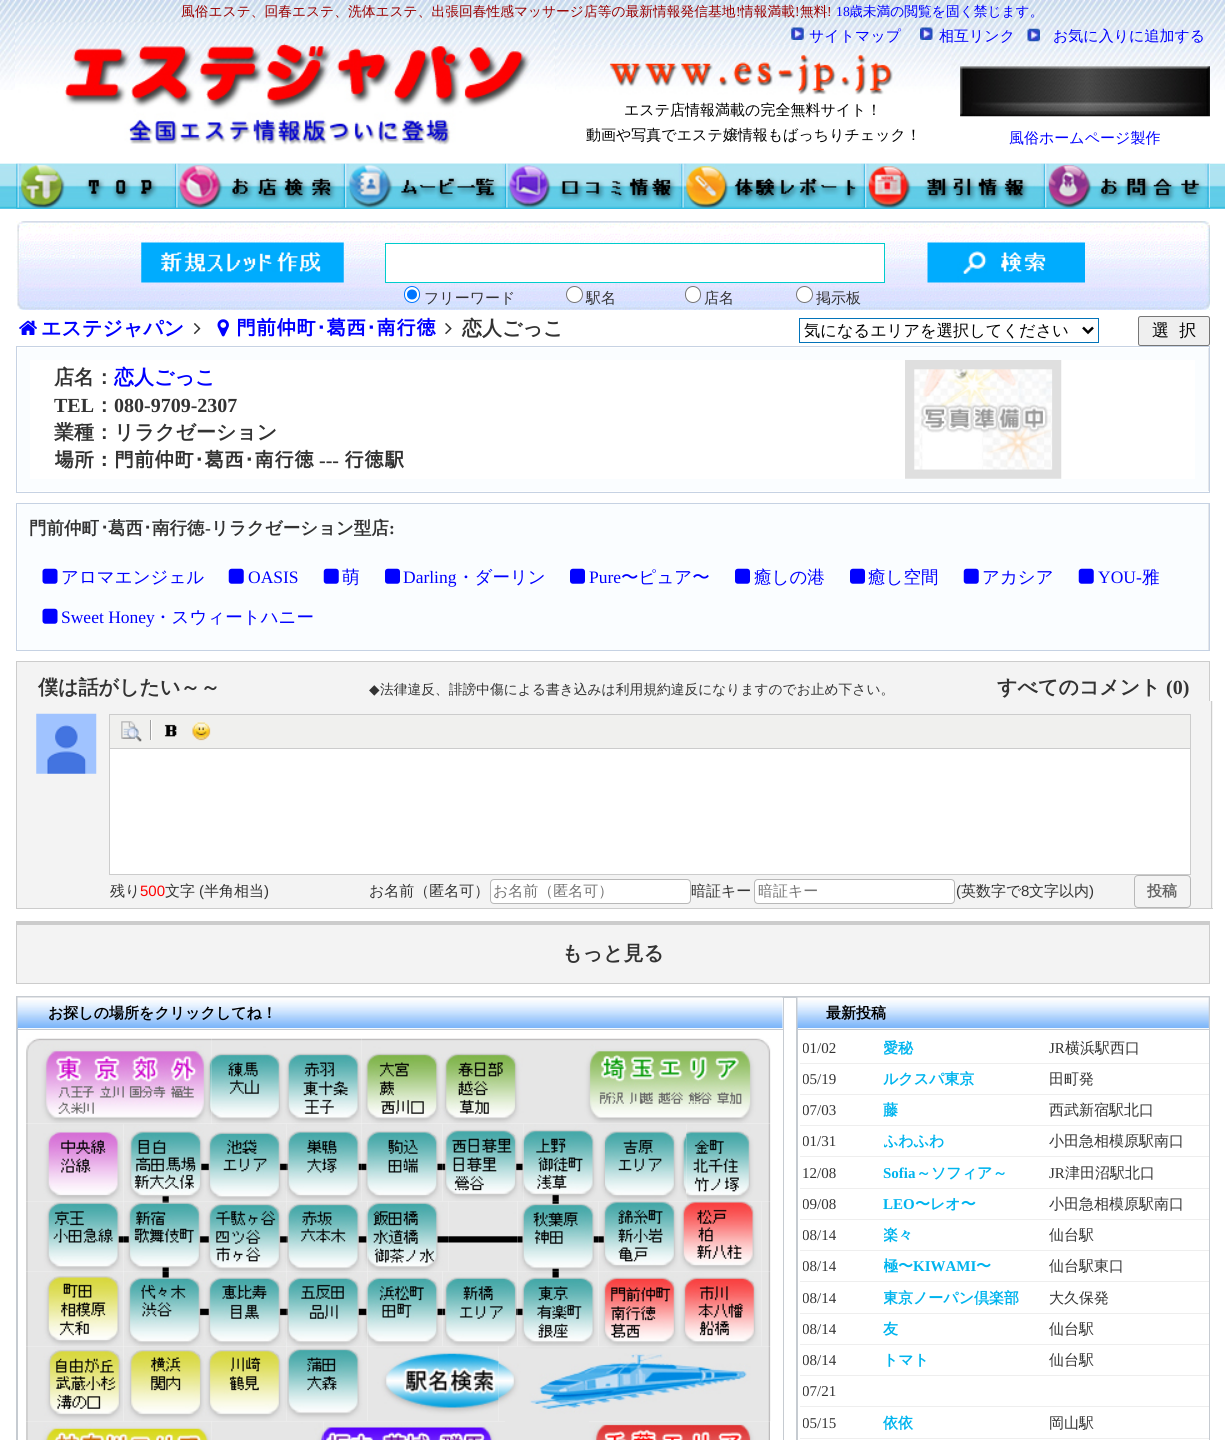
import math
import cairo

surface = cairo.ImageSurface(cairo.Format.RGB24, 1225, 1440)
ctx = cairo.Context(surface)
options = cairo.FontOptions()
options.set_hint_metrics(cairo.HintMetrics.OFF)
options.set_hint_style(cairo.HintStyle.NONE)
ctx.set_font_options(options)
ctx.set_miter_limit(4)


def ink(r, g, b):
    ctx.set_source_rgb(r / 255, g / 255, b / 255)


def write(x, y, s, family, size, color, bold=False, italic=False):
    ctx.select_font_face(family, cairo.FontSlant.ITALIC if italic else cairo.FontSlant.NORMAL, cairo.FontWeight.BOLD if bold else cairo.FontWeight.NORMAL)
    ctx.set_font_size(size)
    ink(*color)
    ctx.move_to(x, y)
    ctx.show_text(s)


def block(x, y, w, h, *color):
    ink(*color)
    ctx.rectangle(x, y, w, h)
    ctx.fill()


def round_path(x, y, w, h, r):
    ctx.new_sub_path()
    for i, (u, v) in enumerate([(x + w - r, y + h - r), (x + r, y + h - r), (x + r, y + r), (x + w - r, y + r)]):
        ctx.arc(u, v, r, i * math.pi / 2, (i + 1) * math.pi / 2)
    ctx.close_path()


def paste(path, x, y, w, h):
    ctx.save()
    ctx.set_source_surface(cairo.ImageSurface.create_from_png(path), x, y)
    ctx.rectangle(x, y, w, h)
    ctx.fill()
    ctx.restore()


s1 = dict(family="WenQuanYi Zen Hei Medium", size=13.75, color=(153, 0, 0))
s2 = dict(family="Liberation Serif", size=13.75, color=(153, 0, 0))
s3 = dict(family="Liberation Serif", size=13.75, color=(0, 0, 255))
s4 = dict(family="WenQuanYi Zen Hei Medium", size=13.75, color=(0, 0, 255))
s5 = dict(family="WenQuanYi Zen Hei Medium", size=15, color=(0, 0, 255))
s6 = dict(family="WenQuanYi Zen Hei Medium", size=15, color=(0, 0, 0))
s7 = dict(family="WenQuanYi Zen Hei Medium", size=15, color=(51, 51, 51))
s8 = dict(family="WenQuanYi Zen Hei", size=20, color=(0, 0, 255), bold=True)
s9 = dict(family="IPAGothic", size=20, color=(0, 0, 255), bold=True)
s10 = dict(family="WenQuanYi Zen Hei", size=20, color=(51, 51, 51), bold=True)
s11 = dict(family="WenQuanYi Zen Hei Medium", size=16.25, color=(0, 0, 0))
s12 = dict(family="WenQuanYi Zen Hei Medium", size=17, color=(0, 0, 0))
s13 = dict(family="Liberation Serif", size=20, color=(51, 51, 51), bold=True)
s14 = dict(family="IPAGothic", size=20, color=(51, 51, 51), bold=True)
s15 = dict(family="WenQuanYi Zen Hei", size=17.5, color=(51, 51, 51), bold=True)
s16 = dict(family="IPAGothic", size=17.5, color=(51, 51, 51), bold=True)
s17 = dict(family="Liberation Serif", size=17.5, color=(51, 51, 51), bold=True)
s18 = dict(family="WenQuanYi Zen Hei Medium", size=17.5, color=(0, 0, 255))
s19 = dict(family="Liberation Serif", size=17.5, color=(0, 0, 255))
s20 = dict(family="DejaVu Sans", size=13.75, color=(51, 51, 51))
s21 = dict(family="WenQuanYi Zen Hei Medium", size=13.75, color=(51, 51, 51))
s22 = dict(family="Liberation Sans", size=15, color=(255, 0, 0))
s23 = dict(family="Liberation Sans", size=15, color=(51, 51, 51))
s24 = dict(family="WenQuanYi Zen Hei Medium", size=15, color=(117, 117, 117))
s25 = dict(family="WenQuanYi Zen Hei", size=15, color=(102, 102, 102), bold=True)
s26 = dict(family="WenQuanYi Zen Hei", size=15, color=(0, 0, 0), bold=True)
s27 = dict(family="Liberation Serif", size=15, color=(51, 51, 51))
s28 = dict(family="WenQuanYi Zen Hei", size=15, color=(0, 180, 238), bold=True)
s29 = dict(family="Liberation Serif", size=15, color=(0, 180, 238), bold=True)

ink(255, 255, 255)
ctx.paint()
paste("pic1.png", 0, 0, 1225, 90)
write(181, 16, "風俗エステ、回春エステ、洗体エステ、出張回春性感マッサージ店等の最新情報発信基地", **s1)
write(736, 16, "!", **s2)
write(740, 16, "情報満載", **s1)
write(795, 16, "!", **s2)
write(800, 16, "無料", **s1)
write(827, 16, "!", **s2)
write(836, 16, "18", **s3)
write(849, 16, "歳未満の閲覧を固く禁じます。", **s4)
paste("pic2.png", 15, 22, 540, 123)
paste("pic3.png", 791, 27, 13, 13)
write(809, 41, "サイトマップ", **s5)
paste("pic4.png", 920, 27, 13, 13)
write(939, 41, "相互リンク", **s5)
paste("pic5.png", 1027, 28, 13, 14)
write(1053, 41, "お気に入りに追加する", **s5)
paste("pic6.png", 556, 45, 396, 50)
write(624, 115, "エステ店情報満載の完全無料サイト！", **s6)
write(586, 140, "動画や写真でエステ嬢情報もばっちりチェック！", **s6)
paste("pic7.png", 960, 66, 250, 51)
write(1009, 143, "風俗ホームページ製作", **s5)
paste("pic8.png", 0, 163, 1225, 46)
paste("pic9.png", 16, 208, 1194, 1)
paste("pic10.png", 16, 163, 161, 45)
paste("pic11.png", 176, 163, 169, 45)
paste("pic12.png", 345, 163, 162, 45)
paste("pic13.png", 506, 163, 177, 45)
paste("pic14.png", 682, 163, 183, 45)
paste("pic15.png", 865, 163, 180, 45)
paste("pic16.png", 1045, 163, 165, 45)
paste("pic17.png", 16, 221, 1194, 89)
paste("pic18.png", 141, 242, 203, 41)
paste("pic19.png", 927, 242, 158, 41)
ink(255, 255, 255)
ctx.rectangle(385.5, 243.5, 499, 39)
ctx.fill_preserve()
ink(0, 204, 204)
ctx.set_line_width(1)
ctx.stroke()
ink(255, 255, 255)
round_path(404.5, 286.5, 15, 16, 7.5)
ctx.fill_preserve()
ink(0, 117, 255)
ctx.stroke()
ctx.arc(412, 294.5, 5, 0, 2 * math.pi)
ctx.fill()
write(424, 303, "フリーワード", **s7)
ink(255, 255, 255)
ctx.new_path()
ctx.arc(574.5, 294.5, 8, 0, 2 * math.pi)
ctx.fill_preserve()
ink(118, 118, 118)
ctx.stroke()
write(586, 303, "駅名", **s7)
ink(255, 255, 255)
round_path(685.5, 286.5, 15, 16, 7.5)
ctx.fill_preserve()
ink(118, 118, 118)
ctx.stroke()
write(704, 303, "店名", **s7)
ink(255, 255, 255)
ctx.new_path()
ctx.arc(804.5, 294.5, 8, 0, 2 * math.pi)
ctx.fill_preserve()
ink(118, 118, 118)
ctx.stroke()
write(816, 303, "掲示板", **s7)
paste("pic20.png", 19, 320, 18, 15)
write(41, 335, "エステジャパン", **s8)
paste("pic21.png", 193, 323, 8, 12)
paste("pic22.png", 217, 319, 12, 18)
write(236, 335, "門前仲町･葛西･南行徳", **s9)
paste("pic23.png", 445, 323, 7, 12)
write(462, 335, "恋人ごっこ", **s10)
ctx.rectangle(799.5, 318.5, 299, 24)
ink(2, 115, 185)
ctx.stroke()
ctx.new_path()
ctx.move_to(1083, 327.5)
ctx.line_to(1088, 332.5)
ctx.line_to(1093, 327.5)
ink(0, 0, 0)
ctx.set_line_width(2.5)
ctx.stroke()
write(804, 336, "気になるエリアを選択してください", **s11)
ink(239, 239, 239)
round_path(1138.5, 316.5, 71, 29, 2)
ctx.fill_preserve()
ink(118, 118, 118)
ctx.set_line_width(1)
ctx.stroke()
write(1152, 336, "選  択", **s12)
ctx.rectangle(16.5, 346.5, 1193, 146)
ink(198, 210, 227)
ctx.stroke()
block(18, 348, 1190, 143, 250, 253, 255)
block(1208, 348, 1, 143, 228, 231, 236)
block(30, 360, 1165, 119, 255, 255, 255)
write(54, 384, "店名：", **s10)
write(114, 384, "恋人ごっこ", **s8)
write(54, 412, "TEL", **s13)
write(94, 412, "：", **s10)
write(114, 412, "080-9709-2307", **s13)
write(54, 439, "業種：リラクゼーション", **s10)
write(54, 467, "場所：門前仲町･葛西･南行徳", **s14)
write(319, 467, "---", **s13)
write(344, 467, "行徳駅", **s14)
paste("pic24.png", 905, 360, 157, 119)
ctx.rectangle(16.5, 503.5, 1193, 147)
ink(198, 210, 227)
ctx.stroke()
block(18, 504, 1190, 146, 250, 253, 255)
block(1208, 504, 1, 146, 228, 231, 236)
write(29, 534, "門前仲町", **s15)
write(100, 534, "･", **s16)
write(108, 534, "葛西", **s15)
write(143, 534, "･", **s16)
write(152, 534, "南行徳", **s15)
write(211, 534, "リラクゼーション型店", **s15)
write(389, 534, ":", **s17)
write(205, 534, "-", **s17)
paste("pic25.png", 42, 568, 16, 16)
write(61, 583, "アロマエンジェル", **s18)
paste("pic26.png", 228, 568, 16, 16)
write(248, 583, "OASIS", **s19)
paste("pic26.png", 323, 568, 16, 16)
write(342, 583, "萌", **s18)
paste("pic27.png", 385, 568, 15, 16)
write(403, 583, "Darling", **s19)
write(457, 583, "・ダーリン", **s18)
paste("pic27.png", 570, 568, 15, 16)
write(589, 583, "Pure", **s19)
write(621, 583, "〜ピュア〜", **s18)
paste("pic27.png", 735, 568, 15, 16)
write(754, 583, "癒しの港", **s18)
paste("pic27.png", 850, 568, 15, 16)
write(868, 583, "癒し空間", **s18)
paste("pic26.png", 963, 568, 16, 16)
write(982, 583, "アカシア", **s18)
paste("pic26.png", 1078, 568, 16, 16)
write(1098, 583, "YOU-", **s19)
write(1142, 583, "雅", **s18)
paste("pic25.png", 42, 608, 16, 16)
write(61, 623, "Sweet Honey", **s19)
write(154, 623, "・スウィートハニー", **s18)
block(17, 662, 1192, 39, 243, 243, 243)
block(16, 661, 1194, 1, 204, 204, 204)
block(1209, 661, 1, 40, 204, 204, 204)
block(16, 661, 1, 40, 204, 204, 204)
write(38, 694, "僕は話がしたい～～", **s10)
write(369, 694, "◆", **s20)
write(380, 694, "法律違反、誹謗中傷による書き込みは利用規約違反になりますのでお止め下さい。", **s21)
write(997, 694, "すべてのコメント", **s10)
write(1166, 694, "(0)", **s13)
block(17, 701, 1196, 207, 243, 243, 243)
block(1211, 701, 1, 208, 204, 204, 204)
block(16, 908, 1197, 1, 204, 204, 204)
block(16, 701, 1, 208, 204, 204, 204)
paste("pic28.png", 36, 713, 61, 61)
block(110, 749, 1080, 125, 255, 255, 255)
ctx.rectangle(109.5, 714.5, 1081, 160)
ink(204, 204, 204)
ctx.stroke()
block(110, 715, 1080, 33, 240, 240, 238)
block(110, 748, 1080, 1, 204, 204, 204)
paste("pic29.png", 121, 721, 21, 21)
block(151, 720, 1, 20, 255, 255, 255)
block(150, 720, 1, 20, 160, 160, 160)
paste("pic30.png", 164, 724, 13, 13)
paste("pic31.png", 192, 721, 19, 20)
write(110, 896, "残り", **s7)
write(140, 896, "500", **s22)
write(165, 896, "文字", **s7)
write(199, 896, "(", **s23)
write(204, 896, "半角相当", **s7)
write(264, 896, ")", **s23)
write(369, 896, "お名前（匿名可）", **s7)
ink(255, 255, 255)
round_path(490.5, 879.5, 200, 24, 3.5)
ctx.fill_preserve()
ink(184, 184, 184)
ctx.stroke()
write(493, 896, "お名前（匿名可）", **s24)
write(691, 896, "暗証キー", **s7)
ink(255, 255, 255)
round_path(754.5, 879.5, 200, 24, 3.5)
ctx.fill_preserve()
ink(184, 184, 184)
ctx.stroke()
write(758, 896, "暗証キー", **s24)
write(956, 896, "(", **s23)
write(961, 896, "英数字で", **s7)
write(1021, 896, "8", **s23)
write(1029, 896, "文字以内", **s7)
write(1089, 896, ")", **s23)
round_path(1134.5, 875.5, 56, 32, 3.5)
ink(184, 184, 184)
ctx.stroke()
write(1147, 896, "投稿", **s25)
block(16, 921, 1194, 3, 204, 204, 204)
ink(243, 243, 243)
ctx.rectangle(16.5, 924.5, 1193, 59)
ctx.fill_preserve()
ink(204, 204, 204)
ctx.stroke()
write(562, 960, "もっと見る", **s10)
block(16, 996, 1194, 444, 198, 203, 209)
block(782, 998, 1, 30, 255, 255, 255)
paste("pic32.png", 17, 997, 766, 32)
block(18, 1028, 765, 1, 245, 250, 255)
write(48, 1018, "お探しの場所をクリックしてね！", **s26)
block(784, 998, 12, 442, 255, 255, 255)
paste("pic33.png", 797, 997, 412, 32)
block(798, 1028, 411, 1, 245, 250, 255)
write(826, 1018, "最新投稿", **s26)
block(18, 1030, 765, 410, 255, 255, 255)
paste("pic34.png", 26, 1038, 186, 86)
paste("pic35.png", 211, 1038, 69, 86)
paste("pic36.png", 280, 1038, 82, 86)
paste("pic37.png", 361, 1038, 79, 86)
paste("pic38.png", 440, 1038, 135, 86)
paste("pic39.png", 575, 1038, 196, 86)
paste("pic40.png", 26, 1124, 98, 78)
paste("pic41.png", 124, 1124, 81, 78)
paste("pic42.png", 205, 1124, 82, 78)
paste("pic43.png", 286, 1124, 76, 78)
paste("pic44.png", 361, 1124, 82, 78)
paste("pic45.png", 442, 1124, 82, 78)
paste("pic46.png", 523, 1124, 82, 78)
paste("pic47.png", 605, 1124, 82, 78)
paste("pic48.png", 686, 1124, 85, 78)
paste("pic49.png", 26, 1201, 98, 71)
paste("pic50.png", 123, 1201, 82, 71)
paste("pic51.png", 205, 1201, 82, 71)
paste("pic52.png", 286, 1201, 82, 71)
paste("pic53.png", 367, 1201, 82, 71)
paste("pic54.png", 448, 1201, 70, 71)
paste("pic55.png", 517, 1201, 82, 71)
paste("pic56.png", 598, 1201, 82, 71)
paste("pic57.png", 680, 1201, 82, 71)
paste("pic58.png", 761, 1201, 10, 71)
paste("pic59.png", 26, 1271, 98, 76)
paste("pic60.png", 124, 1271, 81, 76)
paste("pic61.png", 205, 1271, 82, 76)
paste("pic62.png", 286, 1271, 82, 76)
paste("pic63.png", 367, 1271, 76, 76)
paste("pic64.png", 442, 1271, 76, 76)
paste("pic65.png", 517, 1271, 82, 76)
paste("pic66.png", 599, 1271, 81, 76)
paste("pic67.png", 680, 1271, 82, 76)
paste("pic68.png", 761, 1271, 10, 76)
paste("pic69.png", 26, 1346, 98, 76)
paste("pic70.png", 124, 1346, 81, 76)
paste("pic71.png", 205, 1346, 82, 76)
paste("pic72.png", 286, 1346, 82, 76)
paste("pic73.png", 367, 1346, 132, 76)
paste("pic74.png", 498, 1346, 273, 76)
paste("pic75.png", 26, 1421, 186, 19)
paste("pic76.png", 211, 1421, 113, 19)
paste("pic77.png", 323, 1421, 182, 19)
block(505, 1421, 84, 19, 230, 230, 230)
paste("pic78.png", 589, 1421, 181, 19)
block(798, 1030, 411, 410, 255, 255, 255)
block(800, 1063, 409, 1, 238, 238, 238)
ctx.save()
ctx.rectangle(803, 1033, 73, 30)
ctx.clip()
write(802, 1053, "01/02", **s27)
ctx.restore()
ctx.save()
ctx.rectangle(884, 1033, 156, 30)
ctx.clip()
write(883, 1053, "愛秘", **s28)
ctx.restore()
write(1049, 1053, "JR", **s27)
write(1065, 1053, "横浜駅西口", **s7)
block(800, 1094, 409, 1, 238, 238, 238)
ctx.save()
ctx.rectangle(803, 1064, 73, 30)
ctx.clip()
write(802, 1084, "05/19", **s27)
ctx.restore()
write(883, 1084, "ルクスパ東京", **s28)
write(1049, 1084, "田町発", **s7)
block(800, 1125, 409, 1, 238, 238, 238)
ctx.save()
ctx.rectangle(803, 1095, 73, 30)
ctx.clip()
write(802, 1115, "07/03", **s27)
ctx.restore()
write(883, 1115, "藤", **s28)
write(1049, 1115, "西武新宿駅北口", **s7)
block(800, 1156, 409, 1, 238, 238, 238)
ctx.save()
ctx.rectangle(803, 1126, 73, 30)
ctx.clip()
write(802, 1146, "01/31", **s27)
ctx.restore()
ctx.save()
ctx.rectangle(884, 1126, 156, 30)
ctx.clip()
write(883, 1146, "ふわふわ", **s28)
ctx.restore()
write(1049, 1146, "小田急相模原駅南口", **s7)
block(800, 1188, 409, 1, 238, 238, 238)
write(802, 1178, "12/08", **s27)
write(883, 1178, "Sofia", **s29)
write(916, 1178, "～ソフィア～", **s28)
write(1049, 1178, "JR", **s27)
write(1065, 1178, "津田沼駅北口", **s7)
block(800, 1219, 409, 1, 238, 238, 238)
ctx.save()
ctx.rectangle(803, 1189, 73, 30)
ctx.clip()
write(802, 1209, "09/08", **s27)
ctx.restore()
write(883, 1209, "LEO", **s29)
write(915, 1209, "〜レオ〜", **s28)
write(1049, 1209, "小田急相模原駅南口", **s7)
block(800, 1250, 409, 1, 238, 238, 238)
ctx.save()
ctx.rectangle(803, 1220, 73, 30)
ctx.clip()
write(802, 1240, "08/14", **s27)
ctx.restore()
ctx.save()
ctx.rectangle(884, 1220, 156, 30)
ctx.clip()
write(883, 1240, "楽々", **s28)
ctx.restore()
write(1049, 1240, "仙台駅", **s7)
block(800, 1281, 409, 1, 238, 238, 238)
ctx.save()
ctx.rectangle(803, 1251, 73, 30)
ctx.clip()
write(802, 1271, "08/14", **s27)
ctx.restore()
ctx.save()
ctx.rectangle(884, 1251, 156, 30)
ctx.clip()
write(883, 1271, "極〜", **s28)
ctx.restore()
write(913, 1271, "KIWAMI", **s29)
write(976, 1271, "〜", **s28)
write(1049, 1271, "仙台駅東口", **s7)
block(800, 1313, 409, 1, 238, 238, 238)
ctx.save()
ctx.rectangle(803, 1283, 73, 30)
ctx.clip()
write(802, 1303, "08/14", **s27)
ctx.restore()
ctx.save()
ctx.rectangle(884, 1283, 156, 30)
ctx.clip()
write(883, 1303, "東京ノーパン倶楽部", **s28)
ctx.restore()
write(1049, 1303, "大久保発", **s7)
block(800, 1344, 409, 1, 238, 238, 238)
ctx.save()
ctx.rectangle(803, 1314, 73, 30)
ctx.clip()
write(802, 1334, "08/14", **s27)
ctx.restore()
write(883, 1334, "友", **s28)
write(1049, 1334, "仙台駅", **s7)
block(800, 1375, 409, 1, 238, 238, 238)
ctx.save()
ctx.rectangle(803, 1345, 73, 30)
ctx.clip()
write(802, 1365, "08/14", **s27)
ctx.restore()
write(883, 1365, "トマト", **s28)
write(1049, 1365, "仙台駅", **s7)
block(800, 1406, 409, 1, 238, 238, 238)
ctx.save()
ctx.rectangle(803, 1376, 73, 30)
ctx.clip()
write(802, 1396, "07/21", **s27)
ctx.restore()
block(800, 1438, 409, 1, 238, 238, 238)
ctx.save()
ctx.rectangle(803, 1408, 73, 30)
ctx.clip()
write(802, 1428, "05/15", **s27)
ctx.restore()
write(883, 1428, "依依", **s28)
write(1049, 1428, "岡山駅", **s7)
surface.write_to_png("screenshot.png")
